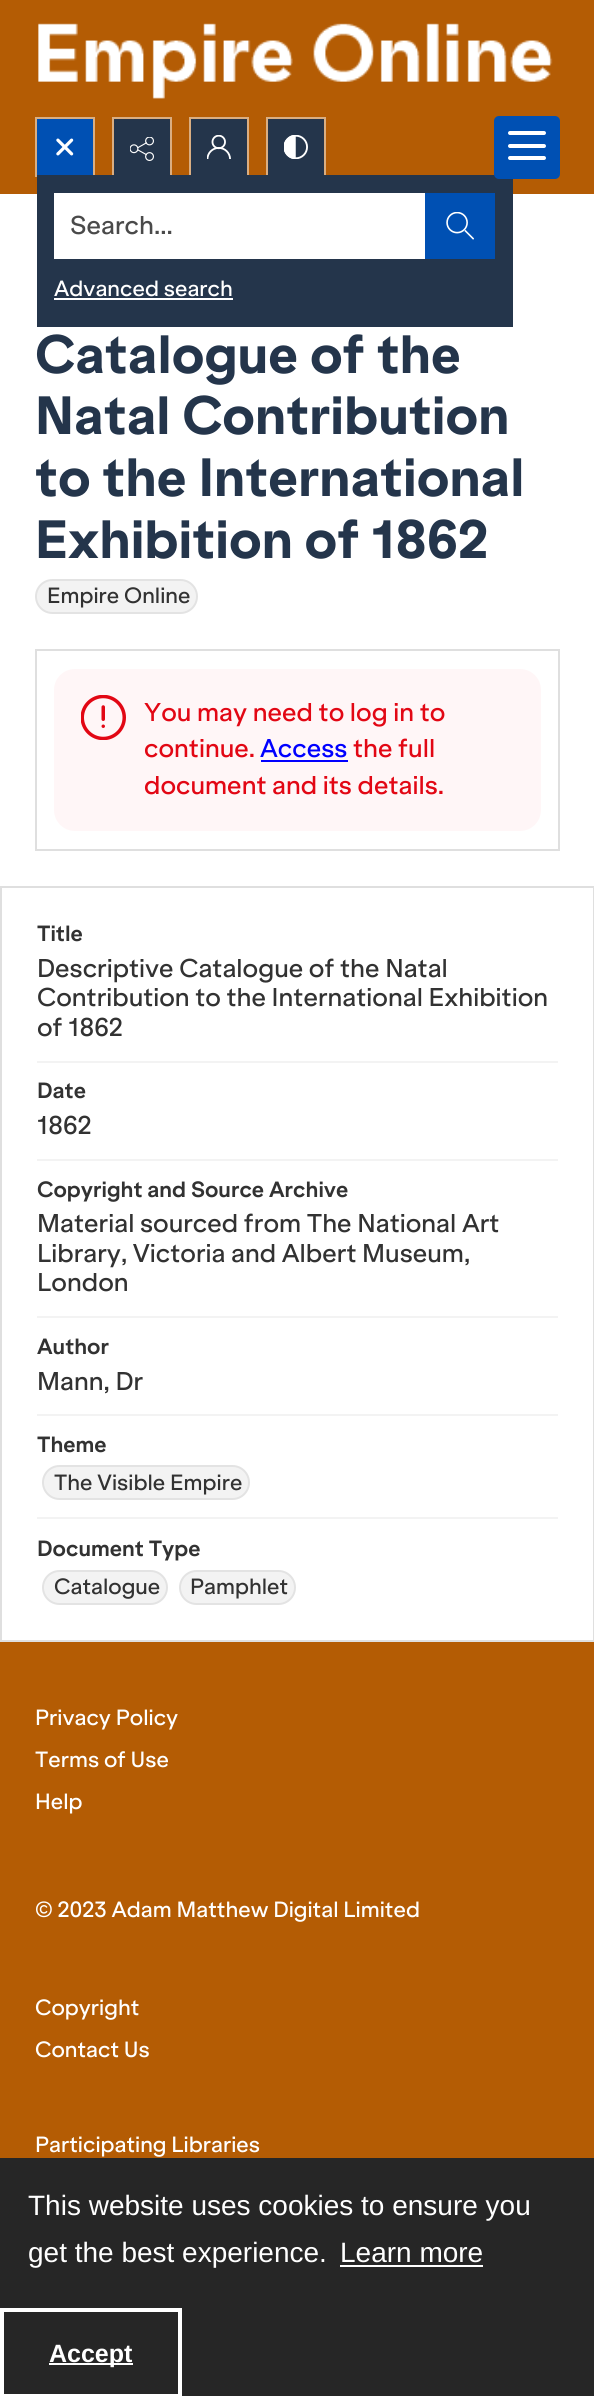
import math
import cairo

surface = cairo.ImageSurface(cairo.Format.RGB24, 594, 2396)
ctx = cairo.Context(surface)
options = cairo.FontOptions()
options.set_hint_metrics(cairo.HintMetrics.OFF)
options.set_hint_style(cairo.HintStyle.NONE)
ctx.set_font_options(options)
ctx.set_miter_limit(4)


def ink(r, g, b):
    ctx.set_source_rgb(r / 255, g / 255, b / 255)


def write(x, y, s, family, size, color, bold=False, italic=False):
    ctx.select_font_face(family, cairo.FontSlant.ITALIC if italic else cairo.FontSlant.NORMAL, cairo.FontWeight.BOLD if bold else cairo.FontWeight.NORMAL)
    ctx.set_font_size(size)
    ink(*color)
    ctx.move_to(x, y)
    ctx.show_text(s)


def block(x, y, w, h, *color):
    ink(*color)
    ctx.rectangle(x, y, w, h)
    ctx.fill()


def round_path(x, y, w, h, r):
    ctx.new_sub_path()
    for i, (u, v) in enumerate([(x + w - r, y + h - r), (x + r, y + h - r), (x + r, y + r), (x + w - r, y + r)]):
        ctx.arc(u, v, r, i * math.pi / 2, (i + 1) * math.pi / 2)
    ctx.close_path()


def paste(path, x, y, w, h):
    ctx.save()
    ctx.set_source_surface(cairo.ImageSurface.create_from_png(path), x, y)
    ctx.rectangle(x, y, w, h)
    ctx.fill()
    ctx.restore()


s1 = dict(family="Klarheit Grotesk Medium", size=24.5, color=(74, 74, 74))
s2 = dict(family="Klarheit Grotesk Medium", size=21, color=(255, 255, 255))
s3 = dict(family="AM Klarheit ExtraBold", size=51.25, color=(36, 53, 75))
s4 = dict(family="Klarheit Grotesk Medium", size=21, color=(50, 50, 50))
s5 = dict(family="Klarheit Grotesk Medium", size=24.5, color=(226, 7, 20))
s6 = dict(family="Klarheit Grotesk Medium", size=24.5, color=(0, 0, 255))
s7 = dict(family="Klarheit Grotesk", size=21, color=(50, 50, 50), bold=True)
s8 = dict(family="Klarheit Grotesk Medium", size=24.5, color=(50, 50, 50))
s9 = dict(family="Liberation Sans", size=28, color=(255, 255, 255))
s10 = dict(family="Liberation Sans", size=25, color=(255, 255, 255), bold=True)

ink(255, 255, 255)
ctx.paint()
block(0, 0, 594, 194, 180, 92, 4)
paste("pic1.png", 38, 23, 515, 76)
ctx.rectangle(113, 118, 58, 58)
ink(218, 174, 130)
ctx.stroke()
ctx.rectangle(190, 118, 58, 58)
ctx.stroke()
ctx.rectangle(267, 118, 58, 58)
ctx.stroke()
ctx.rectangle(36, 118, 58, 58)
ctx.stroke()
block(37, 175, 476, 152, 36, 53, 75)
ink(0, 80, 179)
round_path(494, 116, 66, 63, 5)
ctx.fill()
ink(255, 255, 255)
round_path(508, 144, 38, 4, 2)
ctx.fill()
round_path(508, 131, 38, 4, 2)
ctx.fill()
round_path(508, 156, 38, 4, 2)
ctx.fill()
block(114, 119, 56, 56, 36, 53, 75)
paste("pic2.png", 130, 137, 24, 24)
block(191, 119, 56, 56, 36, 53, 75)
paste("pic3.png", 207, 135, 24, 24)
block(268, 119, 56, 56, 36, 53, 75)
paste("pic4.png", 284, 135, 24, 24)
block(37, 119, 56, 56, 0, 80, 179)
paste("pic5.png", 56, 138, 18, 18)
block(54, 193, 371, 66, 255, 255, 255)
write(70, 234, "Search...", **s1)
block(425, 193, 70, 66, 0, 80, 179)
paste("pic6.png", 446, 212, 28, 28)
write(54, 296, "Advanced search", **s2)
block(54, 298, 179, 2, 255, 255, 255)
write(35, 373, "Catalogue of the", **s3)
write(35, 434, "Natal Contribution", **s3)
write(35, 496, "to the International", **s3)
write(35, 558, "Exhibition of 1862", **s3)
ink(243, 243, 243)
round_path(36, 580, 161, 33, 16.5)
ctx.fill_preserve()
ink(227, 227, 227)
ctx.stroke()
write(47, 603, "Empire Online", **s4)
ctx.rectangle(36, 650, 523, 200)
ink(223, 223, 223)
ctx.stroke()
ink(255, 246, 247)
round_path(54, 669, 487, 162, 21)
ctx.fill()
paste("pic7.png", 81, 695, 45, 45)
write(144, 721, "You may need to log in to", **s5)
write(144, 757, "continue.", **s5)
write(260, 757, "Access", **s6)
block(261, 760, 87, 2, 0, 0, 255)
write(353, 757, "the full", **s5)
write(144, 794, "document and its details.", **s5)
ctx.rectangle(1, 887, 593, 754)
ink(223, 223, 223)
ctx.stroke()
write(37, 941, "Title", **s7)
write(37, 977, "Descriptive Catalogue of the Natal", **s8)
write(37, 1006, "Contribution to the International Exhibition", **s8)
write(37, 1036, "of 1862", **s8)
block(37, 1061, 521, 2, 243, 243, 243)
write(37, 1098, "Date", **s7)
write(37, 1134, "1862", **s8)
block(37, 1159, 521, 2, 243, 243, 243)
write(37, 1197, "Copyright and Source Archive", **s7)
write(37, 1232, "Material sourced from The National Art", **s8)
write(37, 1262, "Library, Victoria and Albert Museum,", **s8)
write(37, 1291, "London", **s8)
block(37, 1316, 521, 2, 243, 243, 243)
write(37, 1354, "Author", **s7)
write(37, 1390, "Mann, Dr", **s8)
block(37, 1414, 521, 2, 243, 243, 243)
write(37, 1452, "Theme", **s7)
ink(243, 243, 243)
round_path(43, 1466, 206, 33, 16.5)
ctx.fill_preserve()
ink(227, 227, 227)
ctx.stroke()
write(54, 1490, "The Visible Empire", **s4)
block(37, 1517, 521, 2, 243, 243, 243)
write(37, 1556, "Document Type", **s7)
ink(243, 243, 243)
round_path(43, 1571, 124, 33, 16.5)
ctx.fill_preserve()
ink(227, 227, 227)
ctx.stroke()
write(54, 1594, "Catalogue", **s4)
ink(243, 243, 243)
round_path(180, 1571, 115, 33, 16.5)
ctx.fill_preserve()
ink(227, 227, 227)
ctx.stroke()
write(190, 1594, "Pamphlet", **s4)
block(0, 1642, 594, 516, 180, 92, 4)
write(35, 1725, "Privacy Policy", **s2)
write(35, 1767, "Terms of Use", **s2)
write(35, 1809, "Help", **s2)
write(35, 1917, "© 2023 Adam Matthew Digital Limited", **s2)
write(35, 2015, "Copyright", **s2)
write(35, 2057, "Contact Us", **s2)
write(35, 2152, "Participating Libraries", **s2)
block(0, 2158, 594, 238, 38, 38, 38)
write(28, 2215, "This website uses cookies to ensure you", **s9)
write(28, 2262, "get the best experience.", **s9)
write(340, 2262, "Learn more", **s9)
block(340, 2265, 143, 2, 255, 255, 255)
ctx.rectangle(2, 2310, 178, 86)
ctx.set_line_width(4)
ctx.stroke()
block(49, 2363, 84, 2, 255, 255, 255)
write(49, 2362, "Accept", **s10)
surface.write_to_png("screenshot.png")
